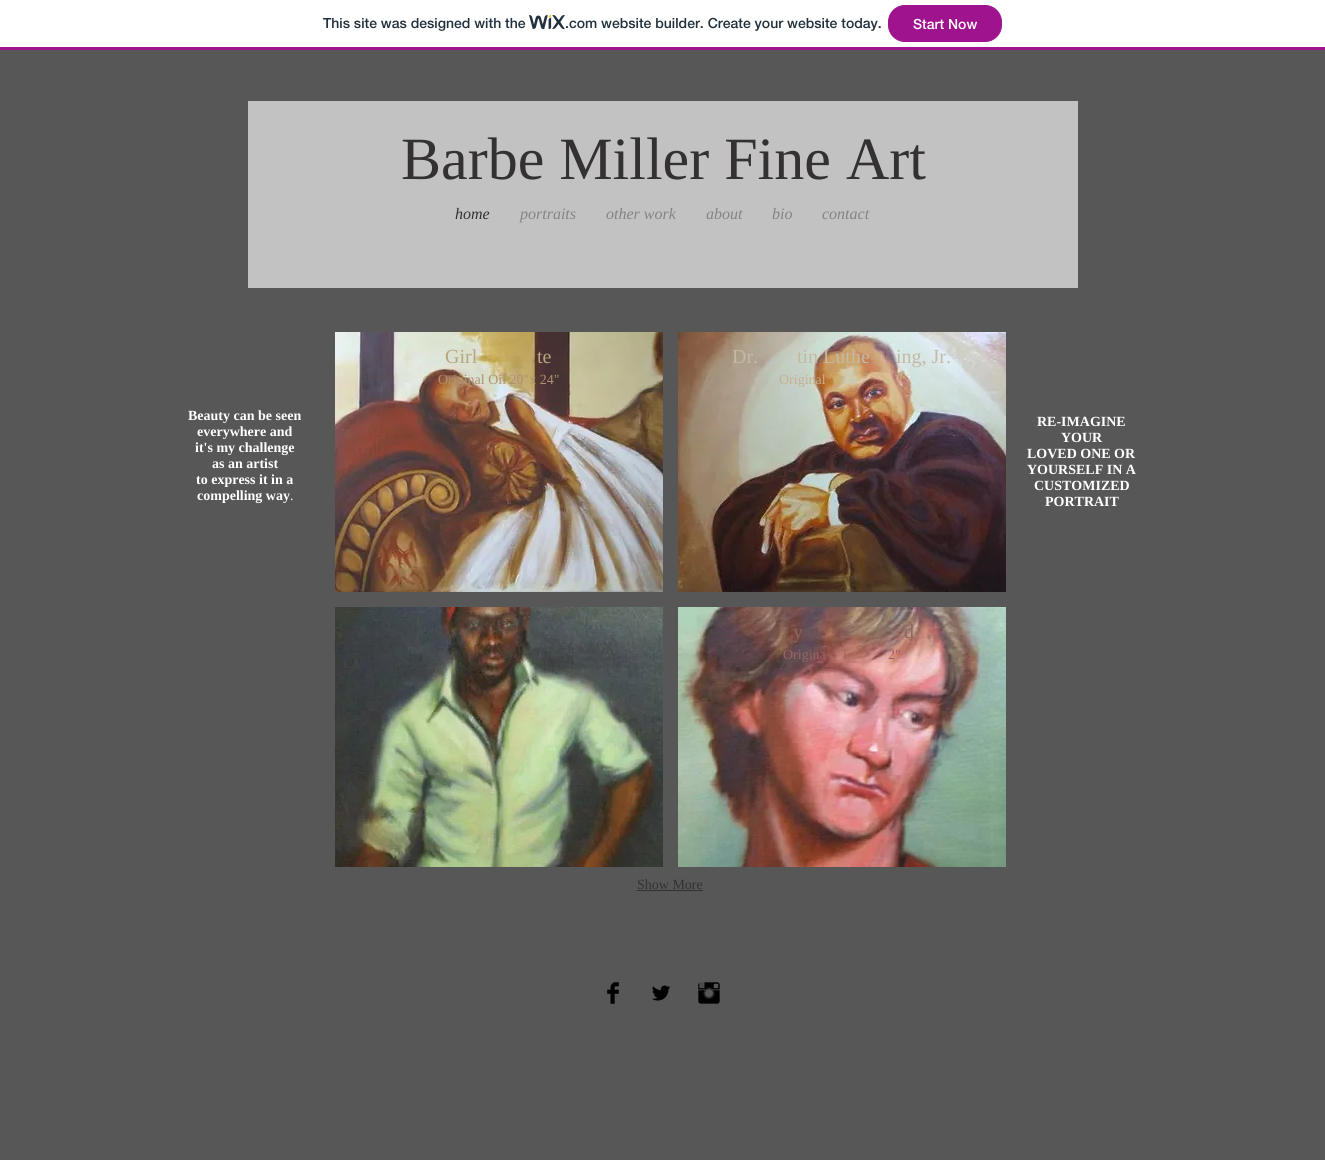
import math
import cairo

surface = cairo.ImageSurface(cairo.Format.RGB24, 1325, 1160)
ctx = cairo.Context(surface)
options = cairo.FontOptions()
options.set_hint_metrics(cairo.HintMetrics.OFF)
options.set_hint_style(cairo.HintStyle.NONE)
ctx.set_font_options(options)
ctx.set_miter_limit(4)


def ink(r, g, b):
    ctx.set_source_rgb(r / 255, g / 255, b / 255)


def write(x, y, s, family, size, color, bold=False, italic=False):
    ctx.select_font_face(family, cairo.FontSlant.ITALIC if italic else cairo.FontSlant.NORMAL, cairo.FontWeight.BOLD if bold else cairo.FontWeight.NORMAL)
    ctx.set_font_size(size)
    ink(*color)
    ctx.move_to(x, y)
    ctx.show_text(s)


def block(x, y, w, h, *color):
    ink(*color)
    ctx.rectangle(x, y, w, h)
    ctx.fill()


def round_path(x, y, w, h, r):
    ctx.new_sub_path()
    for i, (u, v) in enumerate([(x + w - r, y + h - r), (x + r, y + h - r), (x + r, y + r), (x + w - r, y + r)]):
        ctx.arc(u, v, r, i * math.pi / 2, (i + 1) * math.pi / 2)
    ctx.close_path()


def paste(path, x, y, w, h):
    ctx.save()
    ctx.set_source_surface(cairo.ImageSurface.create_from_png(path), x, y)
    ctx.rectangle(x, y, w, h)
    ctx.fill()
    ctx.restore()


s1 = dict(family="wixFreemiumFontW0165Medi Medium", size=14, color=(32, 48, 60))
s2 = dict(family="wixFreemiumFontW0165Medi Medium", size=14, color=(255, 255, 255))
s3 = dict(family="Liberation Serif", size=60, color=(51, 49, 49))
s4 = dict(family="Liberation Serif", size=16, color=(51, 49, 49), italic=True)
s5 = dict(family="Liberation Serif", size=16, color=(133, 132, 132), italic=True)
s6 = dict(family="Liberation Serif", size=14, color=(255, 255, 255), bold=True)
s7 = dict(family="Liberation Serif", size=14, color=(255, 255, 255))
s8 = dict(family="Liberation Serif", size=20, color=(182, 167, 126))
s9 = dict(family="Liberation Serif", size=14, color=(170, 145, 114))
s10 = dict(family="Liberation Serif", size=20, color=(196, 185, 166))
s11 = dict(family="Liberation Serif", size=14, color=(197, 176, 145))
s12 = dict(family="Liberation Serif", size=20, color=(140, 103, 92))
s13 = dict(family="Liberation Serif", size=14, color=(151, 100, 97))
s14 = dict(family="Liberation Serif", size=14, color=(51, 49, 49))

ink(255, 255, 255)
ctx.paint()
block(0, 47, 1325, 3, 160, 19, 142)
write(323, 28, "This site was designed with the", **s1)
paste("pic1.png", 529, 15, 36, 15)
write(565, 28, ".com website builder. Create your website today.", **s1)
ink(160, 19, 142)
round_path(888.5, 5.5, 113, 36, 16.5)
ctx.fill_preserve()
ctx.set_line_width(1)
ctx.stroke()
write(913, 29, "Start Now", **s2)
block(0, 50, 1325, 1110, 87, 87, 87)
block(248, 101, 830, 187, 194, 194, 194)
write(401, 179, "Barbe Miller Fine Art", **s3)
write(455, 219, "home", **s4)
write(520, 219, "portraits", **s5)
write(606, 219, "other work", **s5)
write(706, 219, "about", **s5)
write(772, 219, "bio", **s5)
write(822, 219, "contact", **s5)
write(188, 420, "Beauty can be seen", **s6)
write(197, 436, "everywhere and", **s6)
write(195, 452, "it's my challenge", **s6)
write(212, 468, "as an artist", **s6)
write(196, 484, "to express it in a", **s6)
write(197, 500, "compelling way", **s6)
write(290, 500, ".", **s7)
paste("pic2.png", 335, 332, 328, 260)
write(445, 363, "Girl", **s8)
write(537, 363, "te", **s8)
write(438, 384, "Original Oil 20\"x 24\"", **s9)
paste("pic3.png", 678, 332, 328, 260)
write(732, 363, "Dr.", **s10)
write(797, 363, "tin Luthe", **s10)
write(896, 363, "ing, Jr.", **s10)
write(779, 384, "Original", **s11)
paste("pic4.png", 335, 607, 328, 260)
paste("pic5.png", 678, 607, 328, 260)
write(793, 638, "y", **s12)
write(904, 638, "d", **s12)
write(783, 659, "Origina", **s13)
write(843, 659, "i", **s13)
write(888, 659, "2\"", **s13)
write(637, 889, "Show More", **s14)
block(637, 890, 66, 1, 51, 49, 49)
write(1037, 426, "RE-IMAGINE", **s6)
write(1061, 442, "YOUR", **s6)
write(1027, 458, "LOVED ONE OR", **s6)
write(1027, 474, "YOURSELF IN A", **s6)
write(1034, 490, "CUSTOMIZED", **s6)
write(1045, 506, "PORTRAIT", **s6)
paste("pic6.png", 607, 982, 12, 22)
paste("pic7.png", 652, 985, 19, 16)
paste("pic8.png", 698, 982, 22, 22)
surface.write_to_png("screenshot.png")
